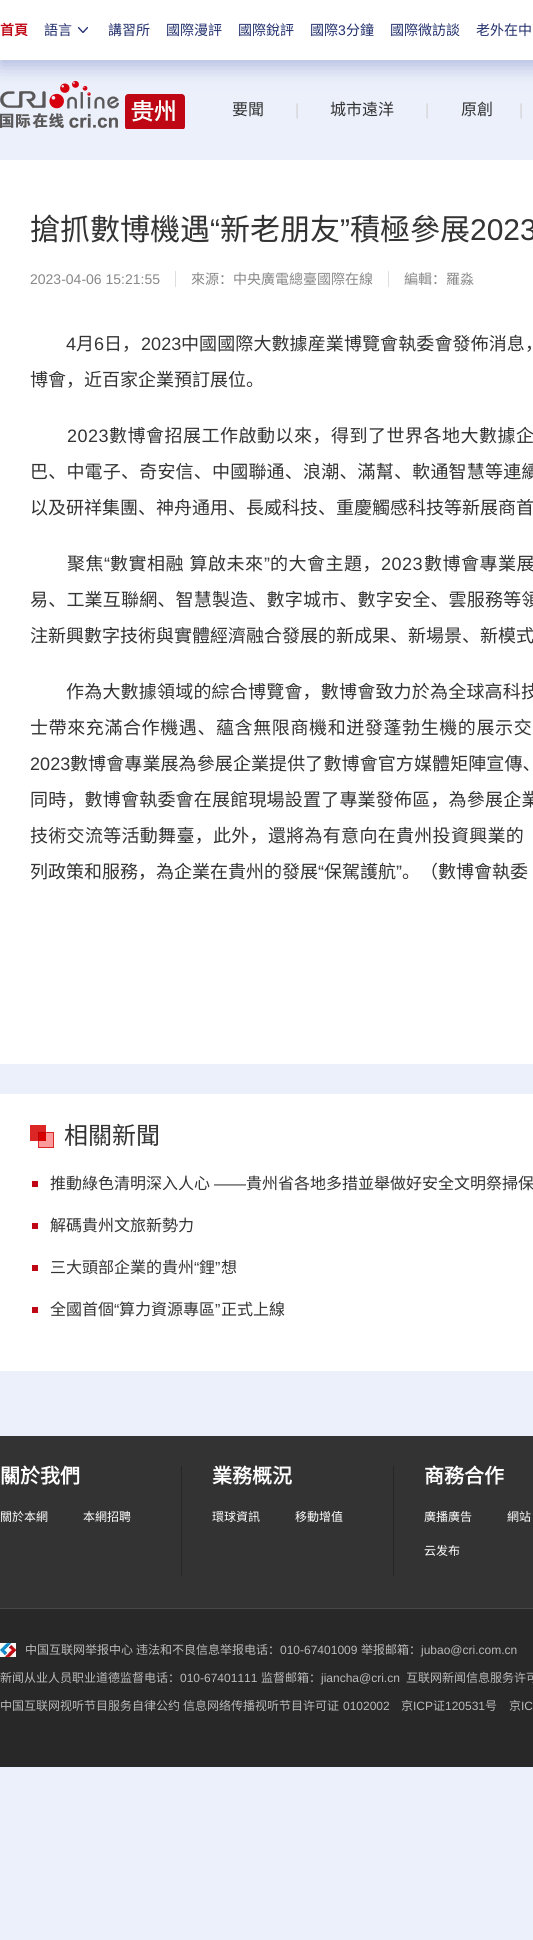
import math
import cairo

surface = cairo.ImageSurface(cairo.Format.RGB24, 533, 1940)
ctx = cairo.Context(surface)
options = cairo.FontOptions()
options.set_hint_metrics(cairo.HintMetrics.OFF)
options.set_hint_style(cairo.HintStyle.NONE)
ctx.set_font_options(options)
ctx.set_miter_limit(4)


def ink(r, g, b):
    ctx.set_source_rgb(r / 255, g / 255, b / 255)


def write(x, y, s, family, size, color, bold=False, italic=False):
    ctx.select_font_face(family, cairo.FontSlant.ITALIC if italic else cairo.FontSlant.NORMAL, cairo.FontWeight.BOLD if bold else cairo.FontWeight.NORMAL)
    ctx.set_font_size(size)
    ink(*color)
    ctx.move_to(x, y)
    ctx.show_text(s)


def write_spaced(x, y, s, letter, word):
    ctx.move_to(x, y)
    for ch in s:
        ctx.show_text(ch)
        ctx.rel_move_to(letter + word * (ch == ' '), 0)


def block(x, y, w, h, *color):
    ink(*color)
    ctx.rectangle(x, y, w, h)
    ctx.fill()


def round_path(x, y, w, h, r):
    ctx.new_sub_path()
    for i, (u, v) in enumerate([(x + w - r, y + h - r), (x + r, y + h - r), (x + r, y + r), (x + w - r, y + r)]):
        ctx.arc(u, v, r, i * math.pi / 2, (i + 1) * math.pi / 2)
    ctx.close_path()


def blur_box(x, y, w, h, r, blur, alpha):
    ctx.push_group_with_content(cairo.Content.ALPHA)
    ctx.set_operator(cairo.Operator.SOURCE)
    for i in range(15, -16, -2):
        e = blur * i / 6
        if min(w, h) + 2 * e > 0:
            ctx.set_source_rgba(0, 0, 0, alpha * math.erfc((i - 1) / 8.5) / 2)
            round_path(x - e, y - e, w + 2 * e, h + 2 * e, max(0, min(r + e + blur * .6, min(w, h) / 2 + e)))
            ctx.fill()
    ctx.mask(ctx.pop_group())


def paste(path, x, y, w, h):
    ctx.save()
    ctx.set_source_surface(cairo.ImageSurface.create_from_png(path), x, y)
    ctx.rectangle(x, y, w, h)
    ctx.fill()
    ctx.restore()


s1 = dict(family="Noto Sans CJK SC", size=14, color=(191, 6, 20), bold=True)
s2 = dict(family="Noto Sans CJK SC", size=14, color=(34, 48, 109))
s3 = dict(family="Liberation Sans", size=14, color=(34, 48, 109))
s4 = dict(family="Noto Sans CJK SC", size=16, color=(51, 51, 51))
s5 = dict(family="Liberation Sans", size=16, color=(212, 212, 212))
s6 = dict(family="Noto Sans CJK SC", size=30, color=(51, 51, 51))
s7 = dict(family="Liberation Sans", size=30, color=(51, 51, 51))
s8 = dict(family="Liberation Sans", size=14, color=(136, 136, 136))
s9 = dict(family="Noto Sans CJK SC", size=14, color=(136, 136, 136))
s10 = dict(family="Noto Sans CJK SC", size=18, color=(51, 51, 51))
s11 = dict(family="Liberation Sans", size=18, color=(51, 51, 51))
s12 = dict(family="Noto Sans CJK SC", size=24, color=(51, 51, 51))
s13 = dict(family="Liberation Sans", size=16, color=(51, 51, 51))
s14 = dict(family="Noto Sans CJK SC", size=20, color=(255, 255, 255), bold=True)
s15 = dict(family="Noto Sans CJK SC", size=12, color=(255, 255, 255))
s16 = dict(family="Noto Sans CJK SC", size=12, color=(186, 186, 186))
s17 = dict(family="Liberation Sans", size=12, color=(186, 186, 186))

ink(236, 240, 251)
ctx.paint()
paste("pic2.png", 0, 81, 185, 48)
ink(67, 86, 170)
blur_box(0, 5, 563, 60, 0, 10, 0.4)
block(0, 0, 533, 60, 255, 255, 255)
write(0, 35, "首頁", **s1)
write(44, 35, "語言", **s2)
paste("pic1.png", 78, 27, 10, 6)
write(108, 35, "講習所", **s2)
write(166, 35, "國際漫評", **s2)
write(238, 35, "國際銳評", **s2)
write(310, 35, "國際", **s2)
write(338, 35, "3", **s3)
write(346, 35, "分鐘", **s2)
write(390, 35, "國際微訪談", **s2)
write(476, 35, "老外在中", **s2)
write(232, 115, "要聞", **s4)
write(295, 115, "|", **s5)
write(330, 115, "城市遠洋", **s4)
write(425, 115, "|", **s5)
write(461, 115, "原創", **s4)
write(519, 115, "|", **s5)
block(0, 160, 533, 904, 255, 255, 255)
write(30, 240, "搶抓數博機遇", **s6)
write(210, 240, "“", **s7)
write(220, 240, "新老朋友", **s6)
write(340, 240, "”", **s7)
write(350, 240, "積極參展", **s6)
write(470, 240, "2023", **s7)
write(30, 284, "2023-04-06 15:21:55", **s8)
write(191, 284, "來源：中央廣電總臺國際在線", **s9)
block(175, 271, 1, 16, 222, 222, 222)
write(404, 284, "編輯：羅淼", **s9)
block(388, 271, 1, 16, 222, 222, 222)
ctx.select_font_face("Liberation Sans")
ctx.set_font_size(18)
ink(51, 51, 51)
write_spaced(66, 350, "4", 0.1, 0)
ctx.select_font_face("Noto Sans CJK SC")
write_spaced(76, 350, "月", 0.1, 0)
ctx.select_font_face("Liberation Sans")
write_spaced(94, 350, "6", 0.1, 0)
ctx.select_font_face("Noto Sans CJK SC")
write_spaced(104, 350, "日，", 0.1, 0)
ctx.select_font_face("Liberation Sans")
write_spaced(141, 350, "2023", 0.1, 0)
ctx.select_font_face("Noto Sans CJK SC")
write_spaced(181, 350, "中國國際大數據産業博覽會執委會發佈消息，", 0.1, 0)
write(30, 386, "博會，近百家企業預訂展位。", **s10)
ctx.select_font_face("Liberation Sans")
write_spaced(67, 442, "2023", 0.5, 0)
ctx.select_font_face("Noto Sans CJK SC")
write_spaced(109, 442, "數博會招展工作啟動以來，得到了世界各地大數據企", 0.5, 0)
write_spaced(30, 478, "巴、中電子、奇安信、中國聯通、浪潮、滿幫、軟通智慧等連續", 0.2, 0)
write(30, 514, "以及研祥集團、神舟通用、長威科技、重慶觸感科技等新展商首", **s10)
write_spaced(67, 570, "聚焦", 0.5, 0)
ctx.select_font_face("Liberation Sans")
write_spaced(104, 570, "“", 0.5, 0)
ctx.select_font_face("Noto Sans CJK SC")
write_spaced(110, 570, "數實相融 算啟未來", 0.5, 1)
ctx.select_font_face("Liberation Sans")
write_spaced(264, 570, "”", 0.5, 0)
ctx.select_font_face("Noto Sans CJK SC")
write_spaced(270, 570, "的大會主題，", 0.5, 0)
ctx.select_font_face("Liberation Sans")
write_spaced(381, 570, "2023", 0.5, 0)
ctx.select_font_face("Noto Sans CJK SC")
write_spaced(424, 570, "數博會專業展", 0.5, 0)
write_spaced(30, 606, "易、工業互聯網、智慧製造、數字城市、數字安全、雲服務等領", 0.2, 0)
write(30, 642, "注新興數字技術與實體經濟融合發展的新成果、新場景、新模式", **s10)
write_spaced(66, 698, "作為大數據領域的綜合博覽會，數博會致力於為全球高科技", 0.2, 0)
write_spaced(30, 734, "士帶來充滿合作機遇、蘊含無限商機和迸發蓬勃生機的展示交", 0.6, 0)
ctx.select_font_face("Liberation Sans")
write_spaced(30, 770, "2023", 0.1, 0)
ctx.select_font_face("Noto Sans CJK SC")
write_spaced(70, 770, "數博會專業展為參展企業提供了數博會官方媒體矩陣宣傳、", 0.1, 0)
write_spaced(30, 806, "同時，數博會執委會在展館現場設置了專業發佈區，為參展企業", 0.2, 0)
write_spaced(30, 842, "技術交流等活動舞臺，此外，還將為有意向在貴州投資興業的", 0.3, 0)
write(30, 878, "列政策和服務，為企業在貴州的發展", **s10)
write(318, 878, "“", **s11)
write(324, 878, "保駕護航", **s10)
write(396, 878, "”", **s11)
write(402, 878, "。（數博會執委", **s10)
block(0, 1094, 533, 277, 255, 255, 255)
paste("pic3.png", 30, 1125, 24, 23)
write(64, 1144, "相關新聞", **s12)
write(50, 1189, "推動綠色清明深入人心", **s4)
block(32, 1181, 6, 6, 190, 6, 20)
write(214, 1189, "——", **s13)
write(246, 1189, "貴州省各地多措並舉做好安全文明祭掃保", **s4)
write(50, 1231, "解碼貴州文旅新勢力", **s4)
block(32, 1223, 6, 6, 190, 6, 20)
write(50, 1273, "三大頭部企業的貴州", **s4)
block(32, 1265, 6, 6, 190, 6, 20)
write(194, 1273, "“", **s13)
write(199, 1273, "鋰", **s4)
write(215, 1273, "”", **s13)
write(221, 1273, "想", **s4)
write(50, 1315, "全國首個", **s4)
block(32, 1307, 6, 6, 190, 6, 20)
write(114, 1315, "“", **s13)
write(119, 1315, "算力資源專區", **s4)
write(215, 1315, "”", **s13)
write(221, 1315, "正式上線", **s4)
block(0, 1436, 533, 172, 51, 51, 51)
block(0, 1608, 533, 1, 72, 72, 72)
block(181, 1466, 1, 110, 39, 39, 39)
write(0, 1483, "關於我們", **s14)
write(0, 1521, "關於本網", **s15)
write(83, 1521, "本網招聘", **s15)
block(393, 1466, 1, 110, 39, 39, 39)
write(212, 1483, "業務概況", **s14)
write(212, 1521, "環球資訊", **s15)
write(295, 1521, "移動增值", **s15)
write(424, 1483, "商務合作", **s14)
write(424, 1521, "廣播廣告", **s15)
write(507, 1521, "網站", **s15)
write(424, 1555, "云发布", **s15)
block(0, 1609, 533, 158, 40, 40, 40)
paste("pic4.png", 0, 1643, 16, 14)
write(25, 1654, "中国互联网举报中心", **s16)
write(136, 1654, "违法和不良信息举报电话：", **s16)
write(280, 1654, "010-67401009", **s17)
write(361, 1654, "举报邮箱：", **s16)
write(421, 1654, "jubao@cri.com.cn", **s17)
write(0, 1682, "新闻从业人员职业道德监督电话：", **s16)
write(180, 1682, "010-67401111", **s17)
write(261, 1682, "监督邮箱：", **s16)
write(321, 1682, "jiancha@cri.cn", **s17)
write(406, 1682, "互联网新闻信息服务许可", **s16)
write(0, 1710, "中国互联网视听节目服务自律公约", **s16)
write(183, 1710, "信息网络传播视听节目许可证", **s16)
write(343, 1710, "0102002", **s17)
write(401, 1710, "京", **s16)
write(413, 1710, "ICP", **s17)
write(433, 1710, "证", **s16)
write(445, 1710, "120531", **s17)
write(485, 1710, "号　京", **s16)
write(521, 1710, "IC", **s17)
surface.write_to_png("screenshot.png")
